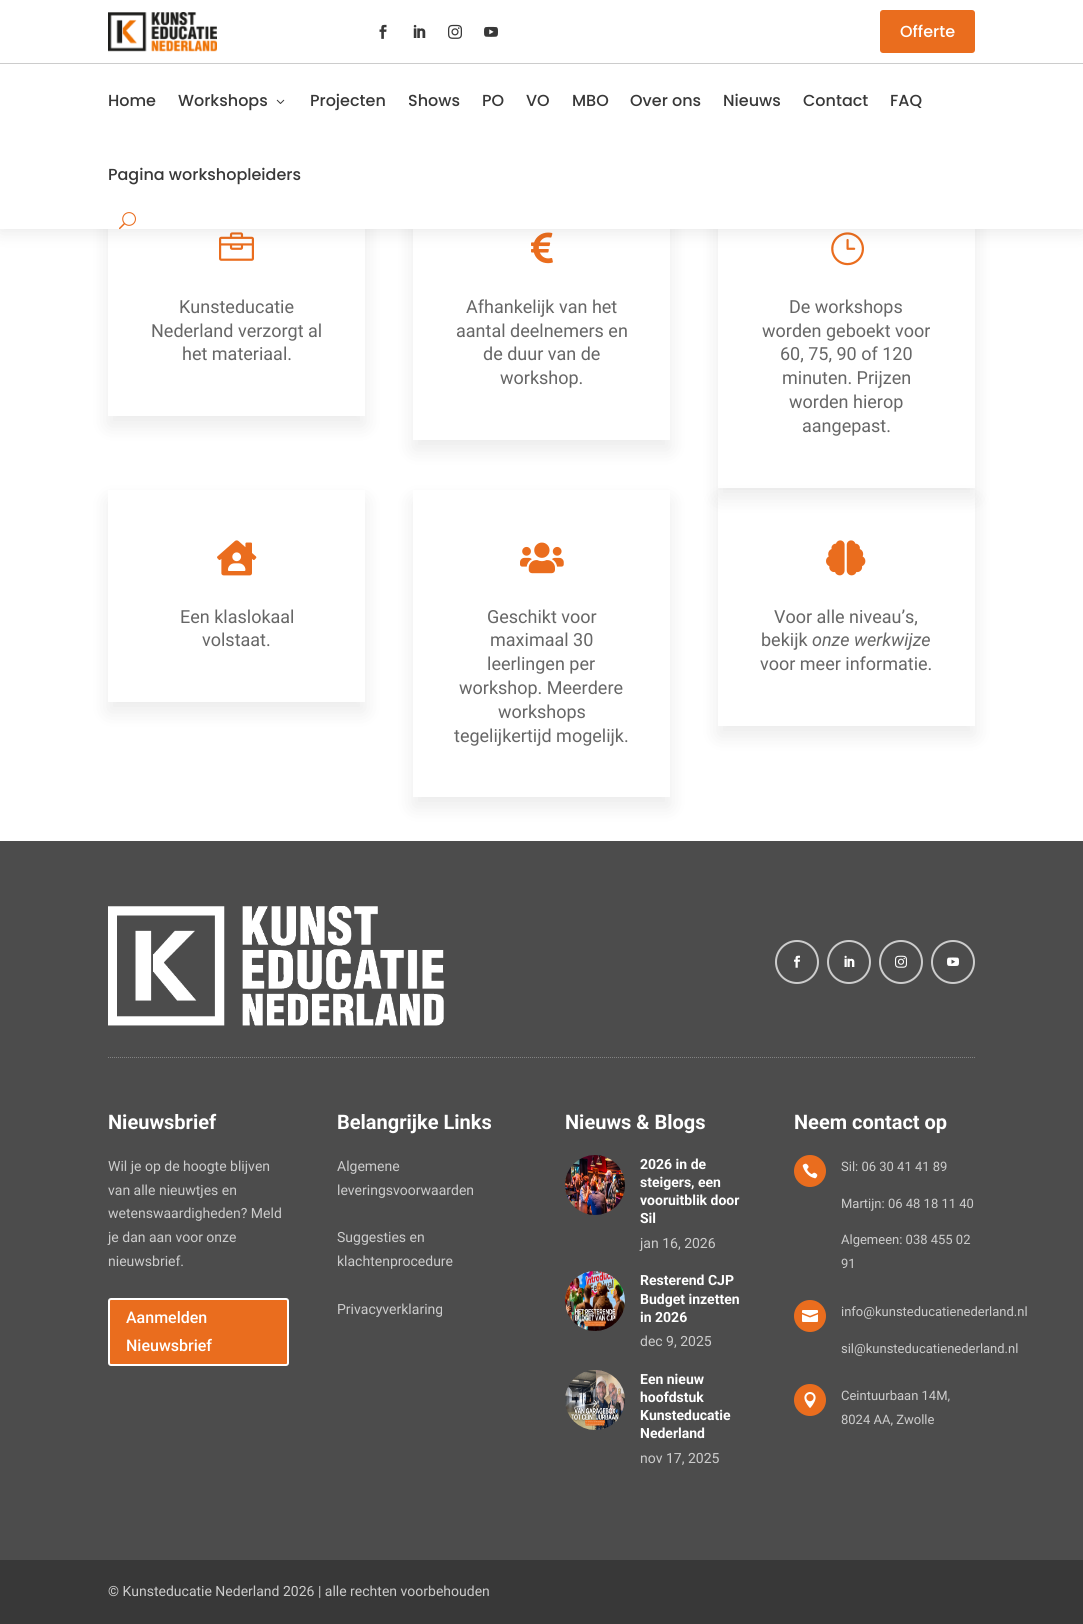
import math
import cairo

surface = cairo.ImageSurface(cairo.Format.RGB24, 1083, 1624)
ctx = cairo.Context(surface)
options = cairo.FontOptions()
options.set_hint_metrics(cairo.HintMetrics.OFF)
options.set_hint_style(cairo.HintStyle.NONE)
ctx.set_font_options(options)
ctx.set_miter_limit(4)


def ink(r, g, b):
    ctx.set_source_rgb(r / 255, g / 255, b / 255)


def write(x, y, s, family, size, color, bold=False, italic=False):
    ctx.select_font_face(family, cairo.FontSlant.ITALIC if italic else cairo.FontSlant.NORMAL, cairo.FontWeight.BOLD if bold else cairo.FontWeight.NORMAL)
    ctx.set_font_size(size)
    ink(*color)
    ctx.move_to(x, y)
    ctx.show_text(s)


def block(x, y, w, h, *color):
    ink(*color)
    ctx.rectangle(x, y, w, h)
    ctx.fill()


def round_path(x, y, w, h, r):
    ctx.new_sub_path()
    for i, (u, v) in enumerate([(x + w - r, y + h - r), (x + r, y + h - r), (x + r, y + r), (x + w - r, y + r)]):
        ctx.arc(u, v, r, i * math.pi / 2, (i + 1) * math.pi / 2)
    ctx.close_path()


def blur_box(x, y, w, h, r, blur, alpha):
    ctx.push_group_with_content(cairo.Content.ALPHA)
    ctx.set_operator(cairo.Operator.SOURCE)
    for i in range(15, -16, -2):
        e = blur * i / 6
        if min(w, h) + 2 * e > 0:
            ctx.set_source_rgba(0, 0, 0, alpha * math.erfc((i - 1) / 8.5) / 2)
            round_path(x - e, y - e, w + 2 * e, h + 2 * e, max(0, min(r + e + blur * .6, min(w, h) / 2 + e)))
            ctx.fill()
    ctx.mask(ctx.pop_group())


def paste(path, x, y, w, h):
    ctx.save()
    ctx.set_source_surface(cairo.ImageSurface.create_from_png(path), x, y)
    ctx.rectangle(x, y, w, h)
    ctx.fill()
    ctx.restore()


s1 = dict(family="Poppins Medium", size=16, color=(255, 255, 255))
s2 = dict(family="Poppins Medium", size=16, color=(56, 56, 56))
s3 = dict(family="Roboto", size=18, color=(102, 102, 102))
s4 = dict(family="Roboto", size=18, color=(102, 102, 102), italic=True)
s5 = dict(family="Roboto", size=20, color=(255, 255, 255), bold=True)
s6 = dict(family="Roboto", size=14, color=(204, 204, 204))
s7 = dict(family="Roboto Medium", size=16, color=(255, 255, 255))
s8 = dict(family="Roboto", size=14, color=(255, 255, 255), bold=True)
s9 = dict(family="Roboto", size=13, color=(204, 204, 204))

ink(255, 255, 255)
ctx.paint()
ctx.save()
ctx.set_fill_rule(cairo.FillRule.EVEN_ODD)
ctx.new_path()
ctx.move_to(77, 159)
ctx.line_to(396, 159)
ctx.line_to(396, 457)
ctx.line_to(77, 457)
ctx.close_path()
ctx.move_to(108, 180)
ctx.line_to(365, 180)
ctx.line_to(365, 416)
ctx.line_to(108, 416)
ctx.close_path()
ctx.clip()
ink(0, 0, 0)
blur_box(108, 190, 257, 236, 0, 10, 0.08)
ctx.restore()
paste("pic8.png", 219, 232, 35, 29)
ctx.save()
ctx.set_fill_rule(cairo.FillRule.EVEN_ODD)
ctx.new_path()
ctx.move_to(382, 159)
ctx.line_to(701, 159)
ctx.line_to(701, 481)
ctx.line_to(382, 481)
ctx.close_path()
ctx.move_to(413, 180)
ctx.line_to(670, 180)
ctx.line_to(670, 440)
ctx.line_to(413, 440)
ctx.close_path()
ctx.clip()
ink(0, 0, 0)
blur_box(413, 190, 257, 260, 0, 10, 0.08)
ctx.restore()
paste("pic9.png", 531, 232, 22, 32)
ctx.save()
ctx.set_fill_rule(cairo.FillRule.EVEN_ODD)
ctx.new_path()
ctx.move_to(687, 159)
ctx.line_to(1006, 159)
ctx.line_to(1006, 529)
ctx.line_to(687, 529)
ctx.close_path()
ctx.move_to(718, 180)
ctx.line_to(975, 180)
ctx.line_to(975, 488)
ctx.line_to(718, 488)
ctx.close_path()
ctx.clip()
ink(0, 0, 0)
blur_box(718, 190, 257, 308, 0, 10, 0.08)
ctx.restore()
paste("pic10.png", 831, 232, 33, 34)
ink(0, 0, 0)
blur_box(0, 2, 1083, 229, 0, 9, 0.1)
block(0, 0, 1083, 229, 255, 255, 255)
block(0, 63, 1083, 1, 204, 204, 204)
paste("pic1.png", 108, 12, 109, 40)
paste("pic2.png", 379, 24, 8, 15)
paste("pic3.png", 413, 24, 13, 14)
paste("pic4.png", 448, 24, 14, 15)
paste("pic5.png", 484, 26, 14, 11)
ink(234, 109, 30)
round_path(880, 10, 95, 43, 3)
ctx.fill()
write(900, 37, "Offerte", **s1)
write(108, 106, "Home", **s2)
write(178, 106, "Workshops", **s2)
paste("pic6.png", 276, 99, 9, 5)
write(310, 106, "Projecten", **s2)
write(408, 106, "Shows", **s2)
write(482, 106, "PO", **s2)
write(526, 106, "VO", **s2)
write(572, 106, "MBO", **s2)
write(630, 106, "Over ons", **s2)
write(723, 106, "Nieuws", **s2)
write(803, 106, "Contact", **s2)
write(890, 106, "FAQ", **s2)
write(108, 180, "Pagina workshopleiders", **s2)
paste("pic7.png", 119, 212, 17, 18)
write(179, 313, "Kunsteducatie", **s3)
write(151, 337, "Nederland verzorgt al", **s3)
write(182, 360, "het materiaal.", **s3)
write(466, 313, "Afhankelijk van het", **s3)
write(456, 337, "aantal deelnemers en", **s3)
write(483, 360, "de duur van de", **s3)
write(500, 384, "workshop.", **s3)
write(789, 313, "De workshops", **s3)
write(762, 337, "worden geboekt voor", **s3)
write(780, 360, "60, 75, 90 of 120", **s3)
write(782, 384, "minuten. Prijzen", **s3)
write(789, 408, "worden hierop", **s3)
write(802, 432, "aangepast.", **s3)
ctx.save()
ctx.set_fill_rule(cairo.FillRule.EVEN_ODD)
ctx.new_path()
ctx.move_to(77, 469)
ctx.line_to(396, 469)
ctx.line_to(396, 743)
ctx.line_to(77, 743)
ctx.close_path()
ctx.move_to(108, 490)
ctx.line_to(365, 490)
ctx.line_to(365, 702)
ctx.line_to(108, 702)
ctx.close_path()
ctx.clip()
ink(0, 0, 0)
blur_box(108, 500, 257, 212, 0, 10, 0.08)
ctx.restore()
paste("pic11.png", 217, 540, 40, 36)
write(180, 623, "Een klaslokaal", **s3)
write(202, 646, "volstaat.", **s3)
ctx.save()
ctx.set_fill_rule(cairo.FillRule.EVEN_ODD)
ctx.new_path()
ctx.move_to(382, 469)
ctx.line_to(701, 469)
ctx.line_to(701, 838)
ctx.line_to(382, 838)
ctx.close_path()
ctx.move_to(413, 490)
ctx.line_to(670, 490)
ctx.line_to(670, 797)
ctx.line_to(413, 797)
ctx.close_path()
ctx.clip()
ink(0, 0, 0)
blur_box(413, 500, 257, 307, 0, 10, 0.08)
ctx.restore()
paste("pic12.png", 520, 542, 44, 32)
write(487, 623, "Geschikt voor", **s3)
write(490, 646, "maximaal 30", **s3)
write(487, 670, "leerlingen per", **s3)
write(459, 694, "workshop. Meerdere", **s3)
write(498, 718, "workshops", **s3)
write(454, 742, "tegelijkertijd mogelijk.", **s3)
ctx.save()
ctx.set_fill_rule(cairo.FillRule.EVEN_ODD)
ctx.new_path()
ctx.move_to(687, 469)
ctx.line_to(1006, 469)
ctx.line_to(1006, 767)
ctx.line_to(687, 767)
ctx.close_path()
ctx.move_to(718, 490)
ctx.line_to(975, 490)
ctx.line_to(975, 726)
ctx.line_to(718, 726)
ctx.close_path()
ctx.clip()
ink(0, 0, 0)
blur_box(718, 500, 257, 236, 0, 10, 0.08)
ctx.restore()
paste("pic13.png", 826, 540, 40, 36)
write(774, 623, "Voor alle niveau’s,", **s3)
write(761, 646, "bekijk", **s3)
write(812, 646, "onze werkwijze", **s4)
write(760, 670, "voor meer informatie.", **s3)
block(0, 841, 1083, 719, 76, 76, 76)
paste("pic14.png", 108, 906, 336, 120)
ctx.arc(797, 962, 21, 0, 2 * math.pi)
ink(204, 204, 204)
ctx.stroke()
paste("pic15.png", 794, 955, 6, 13)
ctx.arc(849, 962, 21, 0, 2 * math.pi)
ctx.stroke()
paste("pic16.png", 844, 955, 11, 12)
ctx.arc(901, 962, 21, 0, 2 * math.pi)
ctx.stroke()
paste("pic17.png", 895, 955, 12, 13)
ctx.arc(953, 962, 21, 0, 2 * math.pi)
ctx.stroke()
paste("pic18.png", 947, 957, 12, 9)
ctx.new_path()
ctx.move_to(108, 1057.5)
ctx.line_to(975, 1057.5)
ink(130, 130, 130)
ctx.set_line_width(1)
ctx.set_dash([1, 1])
ctx.stroke()
write(108, 1129, "Nieuwsbrief", **s5)
write(108, 1171, "Wil je op de hoogte blijven", **s6)
write(108, 1195, "van alle nieuwtjes en", **s6)
write(108, 1218, "wetenswaardigheden? Meld", **s6)
write(108, 1242, "je dan aan voor onze", **s6)
write(108, 1266, "nieuwsbrief.", **s6)
ink(234, 109, 30)
round_path(109, 1299, 179, 66, 2)
ctx.fill_preserve()
ink(255, 255, 255)
ctx.set_line_width(2)
ctx.set_dash([])
ctx.stroke()
write(126, 1323, "Aanmelden", **s7)
write(126, 1351, "Nieuwsbrief", **s7)
write(337, 1129, "Belangrijke Links", **s5)
write(337, 1171, "Algemene", **s6)
write(337, 1195, "leveringsvoorwaarden", **s6)
write(337, 1242, "Suggesties en", **s6)
write(337, 1266, "klachtenprocedure", **s6)
write(337, 1314, "Privacyverklaring", **s6)
write(565, 1129, "Nieuws & Blogs", **s5)
paste("pic19.png", 565, 1155, 60, 60)
write(640, 1169, "2026 in de", **s8)
write(640, 1187, "steigers, een", **s8)
write(640, 1205, "vooruitblik door", **s8)
write(640, 1223, "Sil", **s8)
write(640, 1248, "jan 16, 2026", **s6)
paste("pic20.png", 565, 1271, 60, 60)
write(640, 1285, "Resterend CJP", **s8)
write(640, 1304, "Budget inzetten", **s8)
write(640, 1322, "in 2026", **s8)
write(640, 1346, "dec 9, 2025", **s6)
paste("pic21.png", 565, 1370, 60, 60)
write(640, 1384, "Een nieuw", **s8)
write(640, 1402, "hoofdstuk", **s8)
write(640, 1420, "Kunsteducatie", **s8)
write(640, 1438, "Nederland", **s8)
write(640, 1463, "nov 17, 2025", **s6)
write(794, 1129, "Neem contact op", **s5)
ink(234, 109, 30)
ctx.new_path()
ctx.arc(810, 1171, 16, 0, 2 * math.pi)
ctx.fill()
paste("pic22.png", 802, 1163, 16, 16)
write(841, 1171, "Sil: 06 30 41 41 89", **s9)
write(841, 1208, "Martijn: 06 48 18 11 40", **s9)
write(841, 1244, "Algemeen: 038 455 02", **s9)
write(841, 1268, "91", **s9)
ink(234, 109, 30)
ctx.new_path()
ctx.arc(810, 1316, 16, 0, 2 * math.pi)
ctx.fill()
paste("pic23.png", 802, 1310, 16, 12)
write(841, 1316, "info@kunsteducatienederland.nl", **s9)
write(841, 1353, "sil@kunsteducatienederland.nl", **s9)
ink(234, 109, 30)
ctx.new_path()
ctx.arc(810, 1400, 16, 0, 2 * math.pi)
ctx.fill()
paste("pic24.png", 804, 1392, 12, 16)
write(841, 1400, "Ceintuurbaan 14M,", **s9)
write(841, 1424, "8024 AA, Zwolle", **s9)
block(0, 1560, 1083, 64, 56, 56, 56)
write(108, 1596, "© Kunsteducatie Nederland 2026 | alle rechten voorbehouden", **s6)
surface.write_to_png("screenshot.png")
